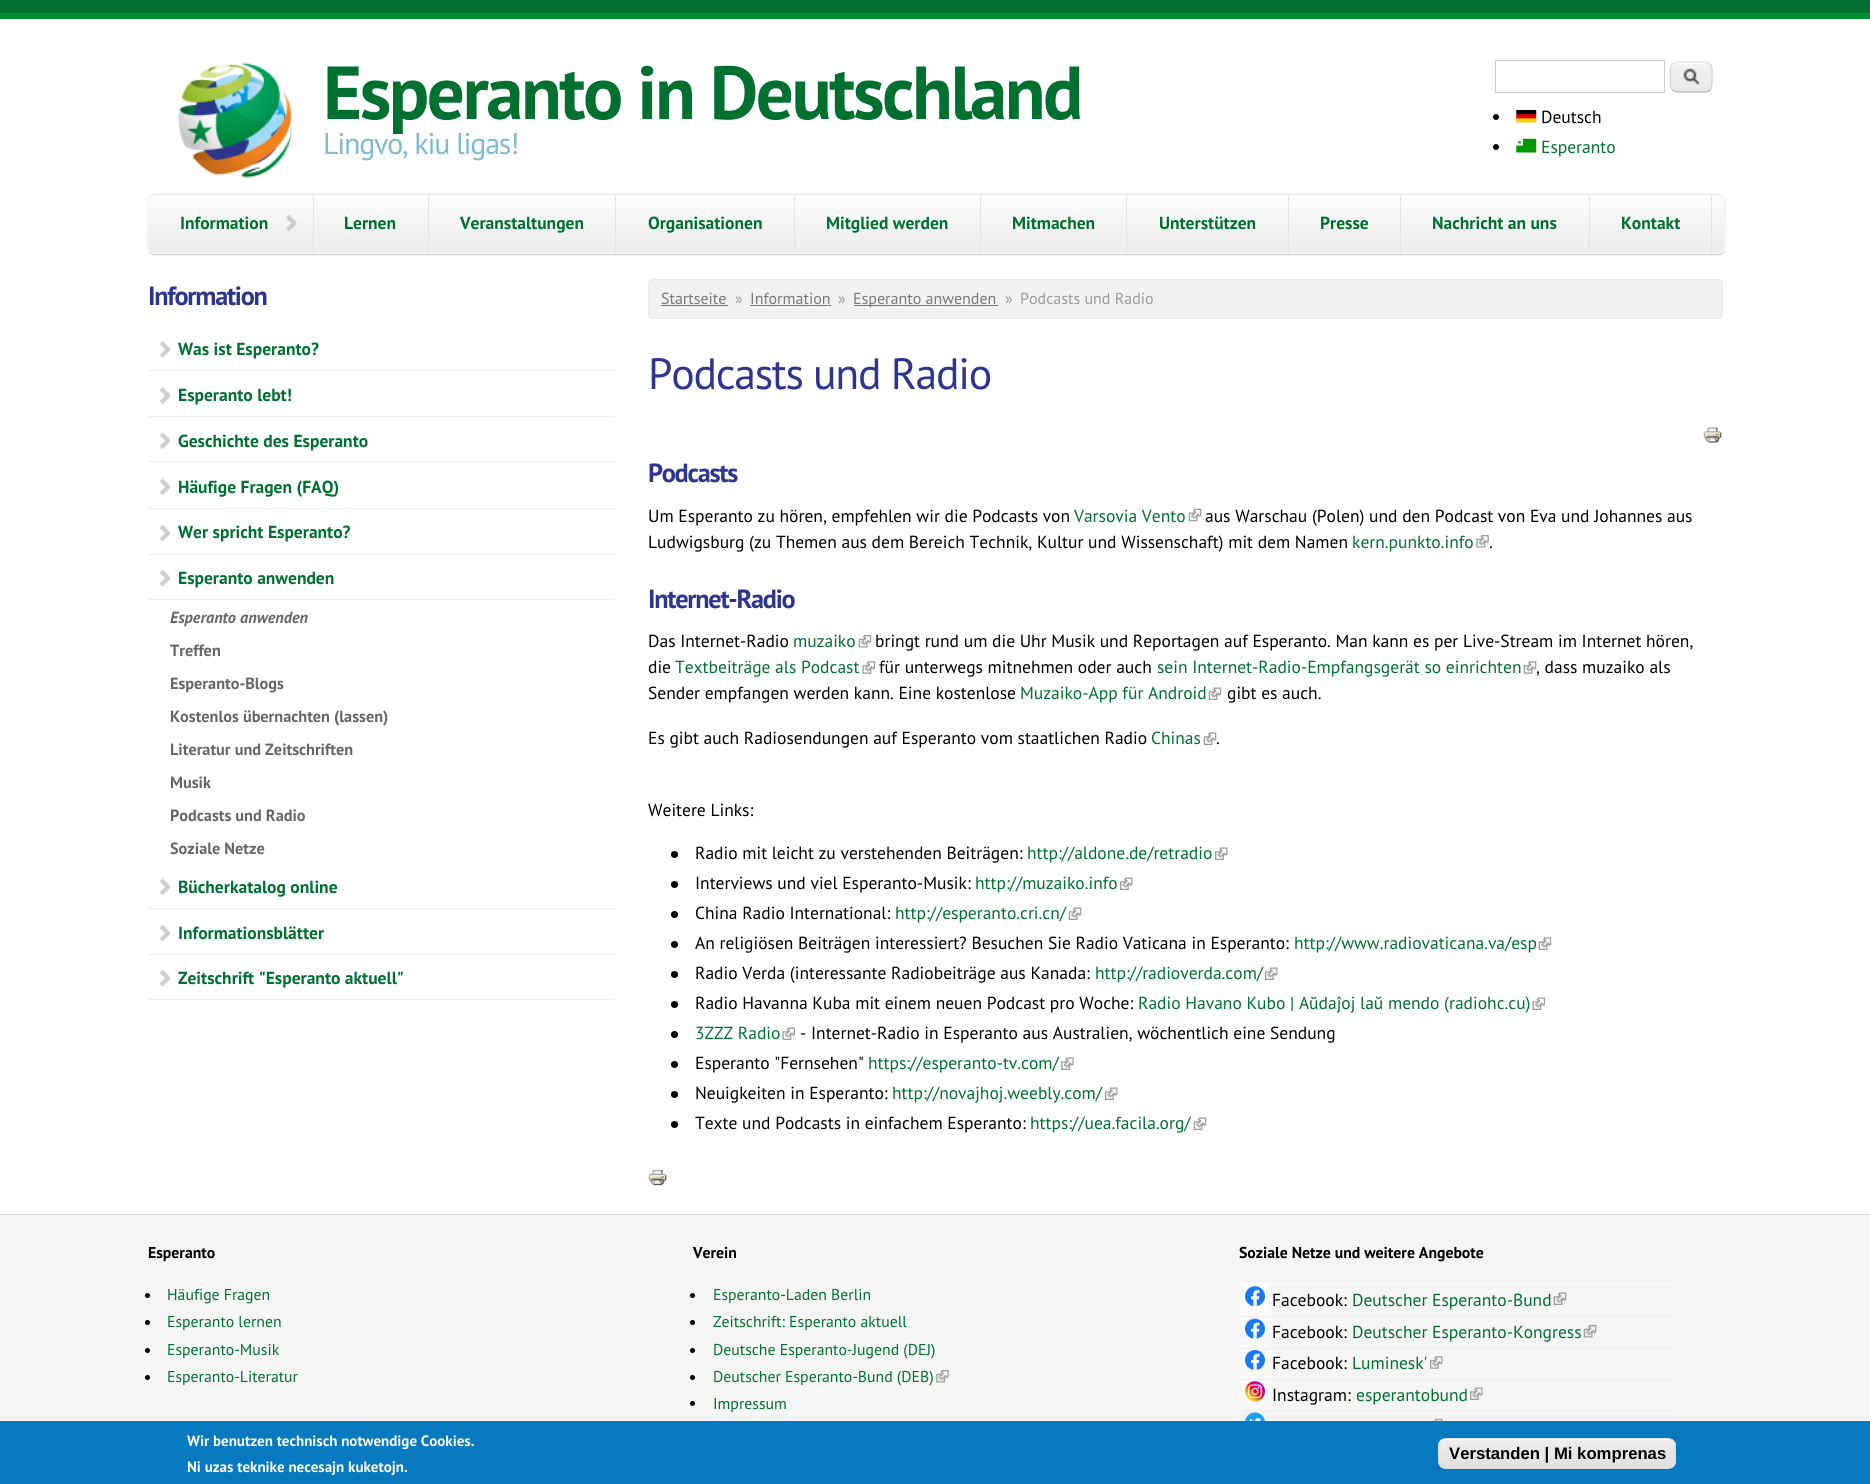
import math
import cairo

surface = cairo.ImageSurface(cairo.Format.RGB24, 1870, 1484)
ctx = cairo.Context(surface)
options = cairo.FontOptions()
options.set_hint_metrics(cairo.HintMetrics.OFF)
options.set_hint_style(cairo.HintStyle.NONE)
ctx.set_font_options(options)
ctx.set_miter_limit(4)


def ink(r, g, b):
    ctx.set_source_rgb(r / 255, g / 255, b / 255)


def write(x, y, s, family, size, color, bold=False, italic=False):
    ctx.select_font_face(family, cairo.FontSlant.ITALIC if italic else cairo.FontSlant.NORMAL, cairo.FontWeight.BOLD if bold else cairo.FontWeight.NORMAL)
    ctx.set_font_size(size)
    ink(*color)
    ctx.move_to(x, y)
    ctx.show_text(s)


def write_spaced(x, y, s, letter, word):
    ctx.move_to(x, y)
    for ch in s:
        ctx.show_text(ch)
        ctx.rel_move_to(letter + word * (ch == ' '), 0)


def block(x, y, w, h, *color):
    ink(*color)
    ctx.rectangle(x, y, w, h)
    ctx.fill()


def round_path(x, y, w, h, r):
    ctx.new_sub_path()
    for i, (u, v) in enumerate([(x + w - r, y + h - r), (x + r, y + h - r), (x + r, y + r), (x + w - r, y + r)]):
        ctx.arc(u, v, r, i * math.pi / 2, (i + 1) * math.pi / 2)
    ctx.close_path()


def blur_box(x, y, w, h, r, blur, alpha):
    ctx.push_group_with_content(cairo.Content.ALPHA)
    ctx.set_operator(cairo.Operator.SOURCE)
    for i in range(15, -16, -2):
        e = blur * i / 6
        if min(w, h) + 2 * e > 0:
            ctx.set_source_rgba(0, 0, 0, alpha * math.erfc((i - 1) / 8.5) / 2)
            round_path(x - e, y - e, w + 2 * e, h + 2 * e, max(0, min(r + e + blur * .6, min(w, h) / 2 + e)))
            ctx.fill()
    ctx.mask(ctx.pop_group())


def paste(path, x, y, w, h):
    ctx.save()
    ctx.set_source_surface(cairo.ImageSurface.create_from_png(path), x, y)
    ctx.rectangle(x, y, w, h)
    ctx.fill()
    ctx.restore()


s1 = dict(family="PT Sans", size=17.5, color=(0, 0, 0))
s2 = dict(family="PT Sans", size=17.5, color=(0, 112, 48))
s3 = dict(family="PT Sans", size=17.5, color=(0, 112, 48), bold=True)
s4 = dict(family="PT Sans", size=16.25, color=(102, 102, 102), bold=True, italic=True)
s5 = dict(family="PT Sans", size=16.25, color=(102, 102, 102), bold=True)
s6 = dict(family="PT Sans", size=16, color=(121, 121, 121))
s7 = dict(family="PT Sans", size=16, color=(153, 153, 153))
s8 = dict(family="PT Sans", size=15.75, color=(0, 0, 0), bold=True)
s9 = dict(family="PT Sans", size=15.75, color=(0, 112, 48))
s10 = dict(family="PT Sans", size=15, color=(255, 255, 255), bold=True)
s11 = dict(family="Liberation Sans", size=16.7, color=(0, 0, 0), bold=True)

ink(255, 255, 255)
ctx.paint()
block(0, 0, 1870, 13, 0, 112, 48)
block(0, 13, 1870, 6, 0, 144, 48)
paste("pic1.png", 177, 62, 116, 116)
ctx.select_font_face("PT Sans", cairo.FontSlant.NORMAL, cairo.FontWeight.BOLD)
ctx.set_font_size(75)
ink(0, 112, 48)
write_spaced(323, 119, "Esperanto in Deutschland", -2.5, 0)
ctx.select_font_face("PT Sans")
ctx.set_font_size(30)
ink(126, 187, 210)
write_spaced(323, 154, "Lingvo, kiu ligas!", -1.25, 0)
ctx.rectangle(1495.5, 60.5, 169, 32)
ink(204, 204, 204)
ctx.set_line_width(1)
ctx.stroke()
paste("pic2.png", 1670, 62, 43, 31)
ink(255, 255, 255)
ctx.set_fill_rule(cairo.FillRule.EVEN_ODD)
ctx.new_path()
ctx.move_to(1678, 64)
ctx.line_to(1700, 64)
ctx.curve_to(1708, 64, 1711, 65, 1711, 69)
ctx.curve_to(1711, 63, 1705, 63, 1700, 63)
ctx.line_to(1682, 63)
ctx.curve_to(1673, 63, 1671, 64, 1671, 73)
ctx.curve_to(1671, 68, 1672, 64, 1678, 64)
ctx.close_path()
ctx.move_to(1672, 88)
ctx.line_to(1671, 83)
ctx.curve_to(1671, 85, 1671, 87, 1672, 88)
ctx.close_path()
ctx.fill()
ctx.new_path()
ctx.move_to(1672.5, 64)
ctx.curve_to(1674, 62.5, 1675.5, 62, 1677.5, 62)
ctx.line_to(1705, 62)
ctx.curve_to(1707, 62, 1708.5, 62.5, 1710, 64)
ink(228, 228, 228)
ctx.set_line_width(1.2)
ctx.stroke()
ctx.new_path()
ctx.move_to(1710, 64)
ctx.curve_to(1713, 67, 1712, 73, 1712, 77)
ctx.curve_to(1712, 81, 1713, 86.5, 1710, 90)
ink(210, 210, 210)
ctx.stroke()
ctx.new_path()
ctx.move_to(1710, 90)
ctx.curve_to(1708.5, 91, 1707, 92, 1705, 92)
ctx.line_to(1677.5, 92)
ctx.curve_to(1675.5, 92, 1674, 91, 1672.5, 90)
ink(180, 180, 180)
ctx.stroke()
ctx.new_path()
ctx.move_to(1672.5, 90)
ctx.curve_to(1669.5, 86.5, 1670.5, 81, 1670.5, 77)
ctx.curve_to(1670.5, 73, 1669.5, 67, 1672.5, 64)
ink(210, 210, 210)
ctx.stroke()
ink(0, 0, 0)
ctx.arc(1496, 117, 3, 0, 2 * math.pi)
ctx.fill()
paste("pic3.png", 1516, 110, 21, 13)
write(1541, 123, "Deutsch", **s1)
ctx.new_path()
ctx.arc(1496, 147, 3, 0, 2 * math.pi)
ctx.fill()
paste("pic4.png", 1516, 138, 21, 15)
write(1541, 153, "Esperanto", **s2)
ink(0, 0, 0)
blur_box(148, 195, 1577, 60, 6, 0.5, 0.2)
ctx.save()
ctx.set_fill_rule(cairo.FillRule.WINDING)
round_path(148, 194, 1577, 60, 6)
ctx.clip()
gradient = cairo.LinearGradient(936, 195, 936, 253)
gradient.add_color_stop_rgba(0, 0.988, 0.988, 0.988, 1)
gradient.add_color_stop_rgba(1, 0.925, 0.925, 0.925, 1)
ctx.set_source(gradient)
ctx.rectangle(148, 195, 1577, 58)
ctx.fill()
gradient = cairo.LinearGradient(936, 252, 936, 310)
gradient.add_color_stop_rgba(0, 0.988, 0.988, 0.988, 1)
gradient.add_color_stop_rgba(1, 0.925, 0.925, 0.925, 1)
ctx.set_source(gradient)
ctx.rectangle(148, 253, 1577, 1)
ctx.fill()
ctx.restore()
ctx.new_path()
ctx.move_to(150, 196)
ctx.curve_to(151, 195, 152.5, 194.5, 154, 194.5)
ctx.line_to(1719, 194.5)
ctx.curve_to(1720, 194.5, 1721.5, 195, 1722.5, 196)
ink(234, 234, 234)
ctx.stroke()
ctx.new_path()
ctx.move_to(1722.5, 196)
ctx.curve_to(1724, 197, 1724.5, 198.5, 1724.5, 200)
ctx.line_to(1724.5, 247.5)
ctx.curve_to(1724.5, 249, 1724, 250.5, 1722.5, 251.5)
ctx.curve_to(1721.5, 252.5, 1720, 253, 1719, 253)
ctx.line_to(154, 253)
ctx.curve_to(152.5, 253, 151, 252.5, 150, 251.5)
ctx.curve_to(148.5, 250.5, 148, 249, 148, 247.5)
ctx.line_to(148, 200)
ctx.curve_to(148, 198.5, 148.5, 197, 150, 196)
ink(245, 245, 245)
ctx.stroke()
block(313, 195, 1, 58, 227, 227, 227)
paste("pic5.png", 286, 215, 11, 17)
write(180, 229, "Information", **s3)
block(428, 195, 1, 58, 227, 227, 227)
write(344, 229, "Lernen", **s3)
block(615, 195, 1, 58, 227, 227, 227)
write(460, 229, "Veranstaltungen", **s3)
block(794, 195, 1, 58, 227, 227, 227)
write(648, 229, "Organisationen", **s3)
block(980, 195, 1, 58, 227, 227, 227)
write(826, 229, "Mitglied werden", **s3)
block(1126, 195, 1, 58, 227, 227, 227)
write(1012, 229, "Mitmachen", **s3)
block(1288, 195, 1, 58, 227, 227, 227)
write(1159, 229, "Unterstützen", **s3)
block(1400, 195, 1, 58, 227, 227, 227)
write(1320, 229, "Presse", **s3)
block(1589, 195, 1, 58, 227, 227, 227)
write(1432, 229, "Nachricht an uns", **s3)
block(1711, 195, 1, 58, 227, 227, 227)
write(1621, 229, "Kontakt", **s3)
ctx.set_font_size(26.25)
ink(46, 53, 140)
write_spaced(148, 305, "Information", -1.25, 0)
paste("pic6.png", 160, 341, 10, 17)
block(148, 370, 466, 1, 238, 238, 238)
write(178, 355, "Was ist Esperanto?", **s3)
paste("pic7.png", 160, 387, 10, 17)
block(148, 416, 466, 1, 238, 238, 238)
write(178, 401, "Esperanto lebt!", **s3)
paste("pic7.png", 160, 432, 10, 17)
block(148, 461, 466, 1, 238, 238, 238)
write(178, 447, "Geschichte des Esperanto", **s3)
paste("pic8.png", 160, 478, 10, 17)
block(148, 508, 466, 1, 238, 238, 238)
write(178, 493, "Häufige Fragen (FAQ)", **s3)
paste("pic9.png", 160, 525, 10, 17)
block(148, 554, 466, 1, 238, 238, 238)
write(178, 538, "Wer spricht Esperanto?", **s3)
paste("pic9.png", 160, 570, 10, 17)
block(148, 599, 466, 1, 238, 238, 238)
write(178, 584, "Esperanto anwenden", **s3)
write(170, 623, "Esperanto anwenden", **s4)
write(170, 656, "Treffen", **s5)
write(170, 689, "Esperanto-Blogs", **s5)
write(170, 722, "Kostenlos übernachten (lassen)", **s5)
write(170, 755, "Literatur und Zeitschriften", **s5)
write(170, 788, "Musik", **s5)
write(170, 821, "Podcasts und Radio", **s5)
write(170, 854, "Soziale Netze", **s5)
paste("pic8.png", 160, 878, 10, 17)
block(148, 908, 466, 1, 238, 238, 238)
write(178, 893, "Bücherkatalog online", **s3)
paste("pic9.png", 160, 925, 10, 17)
block(148, 954, 466, 1, 238, 238, 238)
write(178, 939, "Informationsblätter", **s3)
paste("pic9.png", 160, 970, 10, 17)
block(148, 999, 466, 1, 238, 238, 238)
write(178, 984, "Zeitschrift \"Esperanto aktuell\"", **s3)
ink(241, 241, 241)
round_path(648.5, 279.5, 1074, 39, 4.5)
ctx.fill_preserve()
ink(233, 233, 233)
ctx.set_line_width(1)
ctx.stroke()
write(661, 304, "Startseite", **s6)
block(661, 305, 67, 1, 121, 121, 121)
write(735, 304, "»", **s7)
write(750, 304, "Information", **s6)
block(750, 305, 81, 1, 121, 121, 121)
write(838, 304, "»", **s7)
block(854, 305, 144, 1, 121, 121, 121)
write(853, 304, "Esperanto anwenden", **s6)
write(1005, 304, "»", **s7)
write(1020, 304, "Podcasts und Radio", **s7)
ctx.set_font_size(43.75)
ink(46, 53, 140)
write_spaced(648, 389, "Podcasts und Radio", -1.25, 0)
paste("pic10.png", 1703, 427, 19, 16)
ctx.select_font_face("PT Sans", cairo.FontSlant.NORMAL, cairo.FontWeight.BOLD)
ctx.set_font_size(26.25)
write_spaced(648, 482, "Podcasts", -1.25, 0)
write(648, 522, "Um Esperanto zu hören, empfehlen wir die Podcasts von", **s1)
write(1074, 522, "Varsovia Vento", **s2)
paste("pic11.png", 1188, 508, 14, 14)
write(1205, 522, "aus Warschau (Polen) und den Podcast von Eva und Johannes aus", **s1)
write(648, 548, "Ludwigsburg (zu Themen aus dem Bereich Technik, Kultur und Wissenschaft) mit dem Namen", **s1)
write(1352, 548, "kern.punkto.info", **s2)
paste("pic12.png", 1476, 535, 13, 13)
write(1489, 548, ".", **s1)
ctx.select_font_face("PT Sans", cairo.FontSlant.NORMAL, cairo.FontWeight.BOLD)
ctx.set_font_size(26.25)
ink(46, 53, 140)
write_spaced(648, 608, "Internet-Radio", -1.25, 0)
write(648, 647, "Das Internet-Radio", **s1)
write(793, 647, "muzaiko", **s2)
paste("pic13.png", 858, 635, 14, 13)
write(875, 647, "bringt rund um die Uhr Musik und Reportagen auf Esperanto. Man kann es per Live-Stream im Internet hören,", **s1)
write(648, 673, "die", **s1)
write(675, 673, "Textbeiträge als Podcast", **s2)
paste("pic14.png", 862, 661, 13, 13)
write(879, 673, "für unterwegs mitnehmen oder auch", **s1)
write(1157, 673, "sein Internet-Radio-Empfangsgerät so einrichten", **s2)
paste("pic15.png", 1523, 661, 14, 13)
write(1536, 673, ", dass muzaiko als", **s1)
write(648, 699, "Sender empfangen werden kann. Eine kostenlose", **s1)
write(1020, 699, "Muzaiko-App für Android", **s2)
paste("pic16.png", 1208, 687, 14, 13)
write(1227, 699, "gibt es auch.", **s1)
write(648, 744, "Es gibt auch Radiosendungen auf Esperanto vom staatlichen Radio", **s1)
write(1151, 744, "Chinas", **s2)
paste("pic16.png", 1203, 732, 14, 13)
write(1216, 744, ".", **s1)
write(648, 816, "Weitere Links:", **s1)
ctx.new_path()
ctx.arc(674.5, 854.5, 3.5, 0, 2 * math.pi)
ctx.fill()
write(695, 859, "Radio mit leicht zu verstehenden Beiträgen:", **s1)
write(1027, 859, "http://aldone.de/retradio", **s2)
paste("pic17.png", 1215, 847, 13, 13)
ink(0, 0, 0)
ctx.arc(674.5, 884.5, 3.5, 0, 2 * math.pi)
ctx.fill()
write(695, 889, "Interviews und viel Esperanto-Musik:", **s1)
write(975, 889, "http://muzaiko.info", **s2)
paste("pic18.png", 1120, 877, 13, 13)
ink(0, 0, 0)
ctx.arc(674.5, 914.5, 3.5, 0, 2 * math.pi)
ctx.fill()
write(695, 919, "China Radio International:", **s1)
write(895, 919, "http://esperanto.cri.cn/", **s2)
paste("pic19.png", 1068, 907, 14, 13)
ink(0, 0, 0)
ctx.arc(674.5, 944.5, 3.5, 0, 2 * math.pi)
ctx.fill()
write(695, 949, "An religiösen Beiträgen interessiert? Besuchen Sie Radio Vaticana in Esperanto:", **s1)
write(1294, 949, "http://www.radiovaticana.va/esp", **s2)
paste("pic16.png", 1538, 937, 14, 13)
ink(0, 0, 0)
ctx.arc(674.5, 974.5, 3.5, 0, 2 * math.pi)
ctx.fill()
write(695, 979, "Radio Verda (interessante Radiobeiträge aus Kanada:", **s1)
write(1095, 979, "http://radioverda.com/", **s2)
paste("pic17.png", 1265, 967, 13, 13)
ink(0, 0, 0)
ctx.arc(674.5, 1004.5, 3.5, 0, 2 * math.pi)
ctx.fill()
write(695, 1009, "Radio Havanna Kuba mit einem neuen Podcast pro Woche:", **s1)
write(1138, 1009, "Radio Havano Kubo | Aŭdaĵoj laŭ mendo (radiohc.cu)", **s2)
paste("pic20.png", 1532, 997, 13, 13)
ink(0, 0, 0)
ctx.arc(674.5, 1034.5, 3.5, 0, 2 * math.pi)
ctx.fill()
write(695, 1039, "3ZZZ Radio", **s2)
paste("pic21.png", 782, 1027, 13, 13)
write(800, 1039, "- Internet-Radio in Esperanto aus Australien, wöchentlich eine Sendung", **s1)
ctx.new_path()
ctx.arc(674.5, 1064.5, 3.5, 0, 2 * math.pi)
ctx.fill()
write(695, 1069, "Esperanto \"Fernsehen\"", **s1)
write(868, 1069, "https://esperanto-tv.com/", **s2)
paste("pic22.png", 1061, 1057, 13, 13)
ink(0, 0, 0)
ctx.arc(674.5, 1094.5, 3.5, 0, 2 * math.pi)
ctx.fill()
write(695, 1099, "Neuigkeiten in Esperanto:", **s1)
write(892, 1099, "http://novajhoj.weebly.com/", **s2)
paste("pic18.png", 1105, 1087, 13, 13)
ink(0, 0, 0)
ctx.arc(674.5, 1124.5, 3.5, 0, 2 * math.pi)
ctx.fill()
write(695, 1129, "Texte und Podcasts in einfachem Esperanto:", **s1)
write(1030, 1129, "https://uea.facila.org/", **s2)
paste("pic16.png", 1193, 1117, 14, 13)
paste("pic23.png", 648, 1169, 19, 17)
block(0, 1215, 1870, 206, 245, 245, 245)
block(0, 1214, 1870, 1, 214, 214, 214)
write(148, 1258, "Esperanto", **s8)
ctx.new_path()
ctx.arc(147.5, 1295.5, 2.5, 0, 2 * math.pi)
ctx.fill()
write(167, 1300, "Häufige Fragen", **s9)
ink(0, 0, 0)
ctx.new_path()
ctx.arc(147.5, 1322.5, 2.5, 0, 2 * math.pi)
ctx.fill()
write(167, 1327, "Esperanto lernen", **s9)
ink(0, 0, 0)
ctx.new_path()
ctx.arc(147.5, 1350.5, 2.5, 0, 2 * math.pi)
ctx.fill()
write(167, 1355, "Esperanto-Musik", **s9)
ink(0, 0, 0)
ctx.new_path()
ctx.arc(147.5, 1377.5, 2.5, 0, 2 * math.pi)
ctx.fill()
write(167, 1382, "Esperanto-Literatur", **s9)
write(693, 1258, "Verein", **s8)
ctx.new_path()
ctx.arc(692.5, 1295.5, 2.5, 0, 2 * math.pi)
ctx.fill()
write(713, 1300, "Esperanto-Laden Berlin", **s9)
ink(0, 0, 0)
ctx.new_path()
ctx.arc(692.5, 1322.5, 2.5, 0, 2 * math.pi)
ctx.fill()
write(713, 1327, "Zeitschrift: Esperanto aktuell", **s9)
ink(0, 0, 0)
ctx.new_path()
ctx.arc(692.5, 1350.5, 2.5, 0, 2 * math.pi)
ctx.fill()
write(713, 1355, "Deutsche Esperanto-Jugend (DEJ)", **s9)
ink(0, 0, 0)
ctx.new_path()
ctx.arc(692.5, 1377.5, 2.5, 0, 2 * math.pi)
ctx.fill()
write(713, 1382, "Deutscher Esperanto-Bund (DEB)", **s9)
paste("pic24.png", 936, 1370, 13, 13)
ink(0, 0, 0)
ctx.arc(692.5, 1403.5, 2.5, 0, 2 * math.pi)
ctx.fill()
write(713, 1409, "Impressum", **s9)
write(1239, 1258, "Soziale Netze und weitere Angebote", **s8)
block(1239, 1284, 32, 32, 249, 249, 249)
block(1239, 1283, 435, 1, 255, 255, 255)
block(1239, 1316, 435, 1, 237, 237, 237)
block(1244, 1285, 22, 23, 255, 255, 255)
paste("pic25.png", 1245, 1286, 20, 21)
write(1272, 1306, "Facebook:", **s1)
write(1352, 1306, "Deutscher Esperanto-Bund", **s2)
paste("pic26.png", 1553, 1292, 14, 13)
block(1239, 1317, 32, 31, 249, 249, 249)
block(1239, 1348, 435, 1, 237, 237, 237)
paste("pic27.png", 1245, 1318, 20, 21)
write(1272, 1338, "Facebook:", **s1)
write(1352, 1338, "Deutscher Esperanto-Kongress", **s2)
paste("pic28.png", 1583, 1325, 14, 13)
block(1239, 1349, 32, 30, 249, 249, 249)
block(1239, 1379, 435, 1, 237, 237, 237)
paste("pic29.png", 1245, 1350, 20, 20)
write(1272, 1369, "Facebook:", **s1)
write(1352, 1369, "Luminesk'", **s2)
paste("pic30.png", 1430, 1356, 13, 13)
block(1239, 1380, 32, 30, 249, 249, 249)
block(1239, 1410, 435, 1, 237, 237, 237)
paste("pic31.png", 1245, 1381, 20, 21)
write(1272, 1401, "Instagram:", **s1)
write(1356, 1401, "esperantobund", **s2)
paste("pic32.png", 1470, 1387, 13, 13)
paste("pic33.png", 1245, 1412, 20, 9)
paste("pic34.png", 1433, 1418, 10, 3)
block(0, 1421, 1870, 63, 7, 121, 191)
write(187, 1446, "Wir benutzen technisch notwendige Cookies.", **s10)
write(187, 1472, "Ni uzas teknike necesajn kuketojn.", **s10)
ctx.save()
ctx.set_fill_rule(cairo.FillRule.WINDING)
round_path(1438, 1438, 238, 31, 8)
ctx.clip()
gradient = cairo.LinearGradient(1557, 1439, 1557, 1468)
gradient.add_color_stop_rgba(0.05, 0.929, 0.929, 0.929, 1)
gradient.add_color_stop_rgba(1, 0.875, 0.875, 0.875, 1)
ctx.set_source(gradient)
ctx.rectangle(1438, 1439, 238, 29)
ctx.fill()
ctx.restore()
ctx.new_path()
ctx.move_to(1445, 1440)
ctx.line_to(1670, 1440)
ctx.curve_to(1674, 1441, 1675, 1443, 1675, 1446)
ctx.line_to(1675, 1445)
ctx.curve_to(1675, 1442, 1672, 1439, 1669, 1439)
ctx.line_to(1445, 1439)
ctx.curve_to(1442, 1439, 1439, 1442, 1439, 1445)
ctx.curve_to(1440, 1442, 1441, 1440, 1445, 1440)
ctx.close_path()
ctx.move_to(1675, 1463)
ctx.line_to(1675, 1464)
ctx.close_path()
ctx.fill()
round_path(1438.5, 1438.5, 237, 30, 7.5)
ink(220, 220, 220)
ctx.stroke()
write(1449, 1459, "Verstanden | Mi komprenas", **s11)
surface.write_to_png("screenshot.png")
